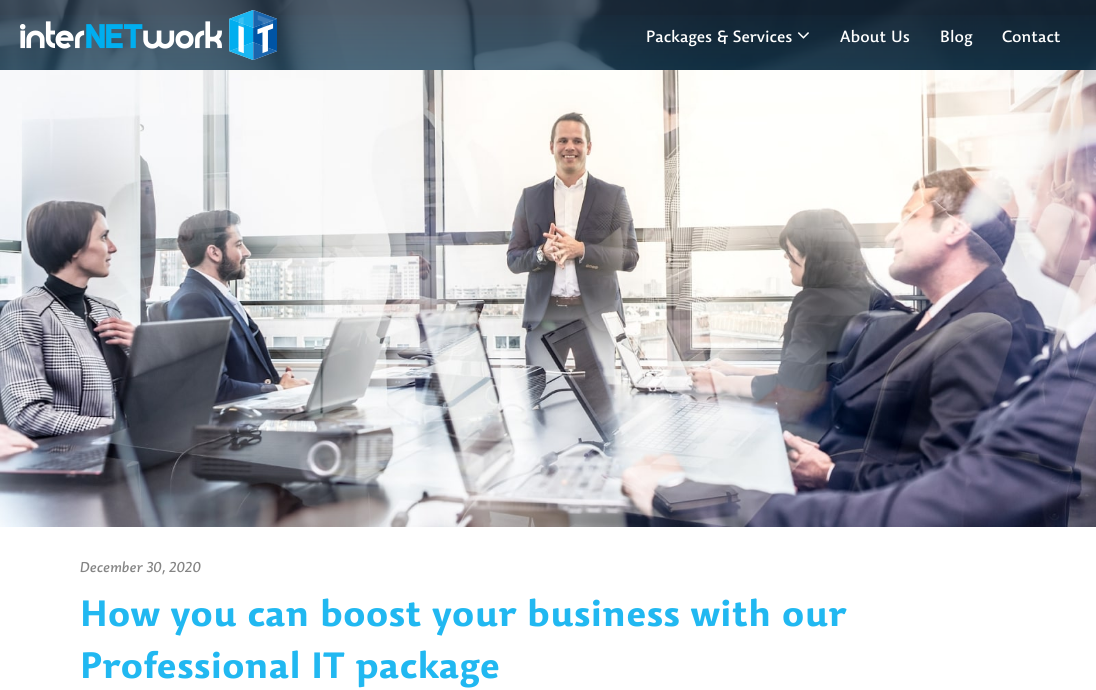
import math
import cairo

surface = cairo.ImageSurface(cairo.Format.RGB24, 1096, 690)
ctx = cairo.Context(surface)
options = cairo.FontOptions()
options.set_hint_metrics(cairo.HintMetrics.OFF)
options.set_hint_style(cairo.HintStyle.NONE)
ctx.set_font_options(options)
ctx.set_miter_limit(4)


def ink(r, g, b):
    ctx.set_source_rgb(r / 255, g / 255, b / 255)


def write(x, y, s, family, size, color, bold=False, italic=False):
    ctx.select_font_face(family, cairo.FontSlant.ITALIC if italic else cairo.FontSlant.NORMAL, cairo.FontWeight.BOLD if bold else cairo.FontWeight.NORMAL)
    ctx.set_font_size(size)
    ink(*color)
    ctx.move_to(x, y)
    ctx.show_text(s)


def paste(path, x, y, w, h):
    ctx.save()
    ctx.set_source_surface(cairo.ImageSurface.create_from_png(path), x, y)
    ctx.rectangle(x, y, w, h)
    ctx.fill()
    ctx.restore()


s1 = dict(family="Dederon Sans", size=16, color=(255, 255, 255))
s2 = dict(family="Dederon Sans", size=14, color=(132, 132, 132), italic=True)
s3 = dict(family="Dederon Sans", size=36, color=(33, 184, 241), bold=True)

ink(255, 255, 255)
ctx.paint()
paste("pic1.png", 0, 0, 1096, 70)
gradient = cairo.LinearGradient(548, 0, 548, 690)
gradient.add_color_stop_rgba(0, 0.102, 0.714, 0.945, 0)
gradient.add_color_stop_rgba(1, 0.102, 0.714, 0.945, 1)
ctx.set_source(gradient)
ctx.rectangle(0, 15, 1096, 55)
ctx.fill()
paste("pic2.png", 20, 10, 257, 50)
write(646, 42, "Packages & Services", **s1)
paste("pic3.png", 797, 32, 12, 7)
write(840, 42, "About Us", **s1)
write(940, 42, "Blog", **s1)
write(1002, 42, "Contact", **s1)
paste("pic4.png", 0, 70, 1096, 457)
write(80, 572, "December 30, 2020", **s2)
write(80, 626, "How you can boost your business with our", **s3)
write(80, 678, "Professional IT package", **s3)
surface.write_to_png("screenshot.png")
